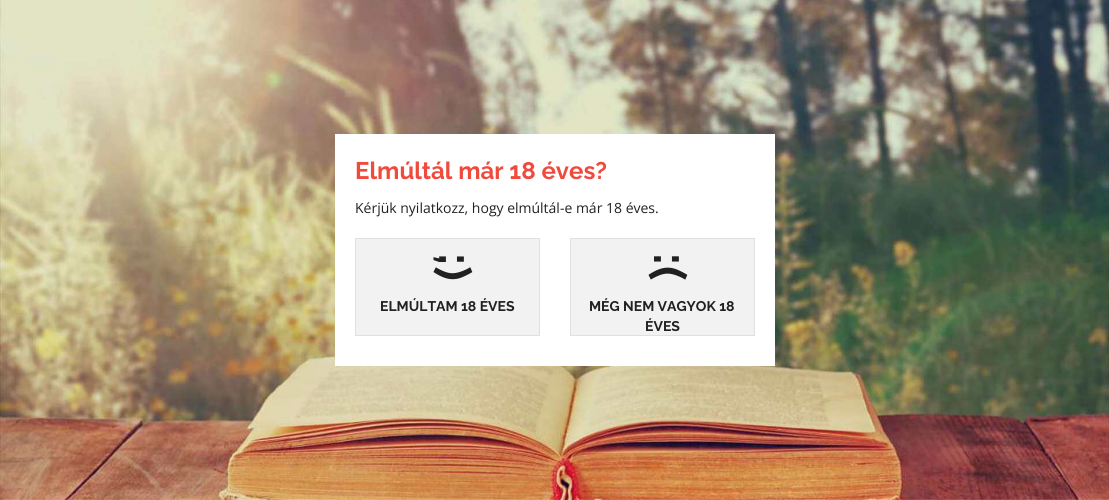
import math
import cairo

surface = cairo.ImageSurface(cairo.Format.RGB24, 1109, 500)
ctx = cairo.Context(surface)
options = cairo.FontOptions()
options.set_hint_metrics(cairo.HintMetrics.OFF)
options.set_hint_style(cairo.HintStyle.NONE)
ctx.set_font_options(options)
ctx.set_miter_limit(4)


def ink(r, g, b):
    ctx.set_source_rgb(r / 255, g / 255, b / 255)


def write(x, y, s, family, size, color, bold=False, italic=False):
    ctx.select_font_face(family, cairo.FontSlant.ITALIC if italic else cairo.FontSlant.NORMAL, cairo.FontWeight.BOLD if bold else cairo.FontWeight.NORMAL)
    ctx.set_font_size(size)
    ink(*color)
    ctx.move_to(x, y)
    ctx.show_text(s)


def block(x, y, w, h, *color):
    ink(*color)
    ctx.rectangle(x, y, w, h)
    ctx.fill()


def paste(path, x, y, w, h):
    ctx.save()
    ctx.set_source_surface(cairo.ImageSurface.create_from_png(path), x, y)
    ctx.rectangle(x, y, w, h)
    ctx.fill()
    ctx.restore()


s1 = dict(family="Raleway", size=24, color=(240, 74, 60), bold=True)
s2 = dict(family="Open Sans", size=14, color=(33, 33, 33))
s3 = dict(family="Raleway", size=48, color=(33, 33, 33), bold=True)
s4 = dict(family="Raleway", size=14, color=(33, 33, 33), bold=True)

ink(255, 255, 255)
ctx.paint()
ctx.rectangle(650.5, 180.5, 373, 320)
ink(45, 45, 45)
ctx.set_line_width(1)
ctx.stroke()
paste("pic1.png", 0, 0, 1109, 500)
block(335, 134, 440, 232, 255, 255, 255)
write(355, 179, "Elmúltál már 18 éves?", **s1)
write(355, 213, "Kérjük nyilatkozz, hogy elmúltál-e már 18 éves.", **s2)
ink(242, 242, 242)
ctx.rectangle(355.5, 238.5, 184, 97)
ctx.fill_preserve()
ink(224, 224, 224)
ctx.stroke()
ctx.save()
ctx.translate(439, 253)
ctx.rotate(90 * math.pi / 180)
write(0, 0, ";", **s3)
ctx.restore()
ctx.save()
ctx.translate(436, 266)
ctx.rotate(90 * math.pi / 180)
write(0, 0, ")", **s3)
ctx.restore()
write(380, 311, "ELMÚLTAM 18 ÉVES", **s4)
ink(242, 242, 242)
ctx.rectangle(570.5, 238.5, 184, 97)
ctx.fill_preserve()
ink(224, 224, 224)
ctx.stroke()
ctx.save()
ctx.translate(654, 253)
ctx.rotate(90 * math.pi / 180)
write(0, 0, ":", **s3)
ctx.restore()
ctx.save()
ctx.translate(651, 266)
ctx.rotate(90 * math.pi / 180)
write(0, 0, "(", **s3)
ctx.restore()
write(589, 311, "MÉG NEM VAGYOK 18", **s4)
write(645, 331, "ÉVES", **s4)
surface.write_to_png("screenshot.png")
